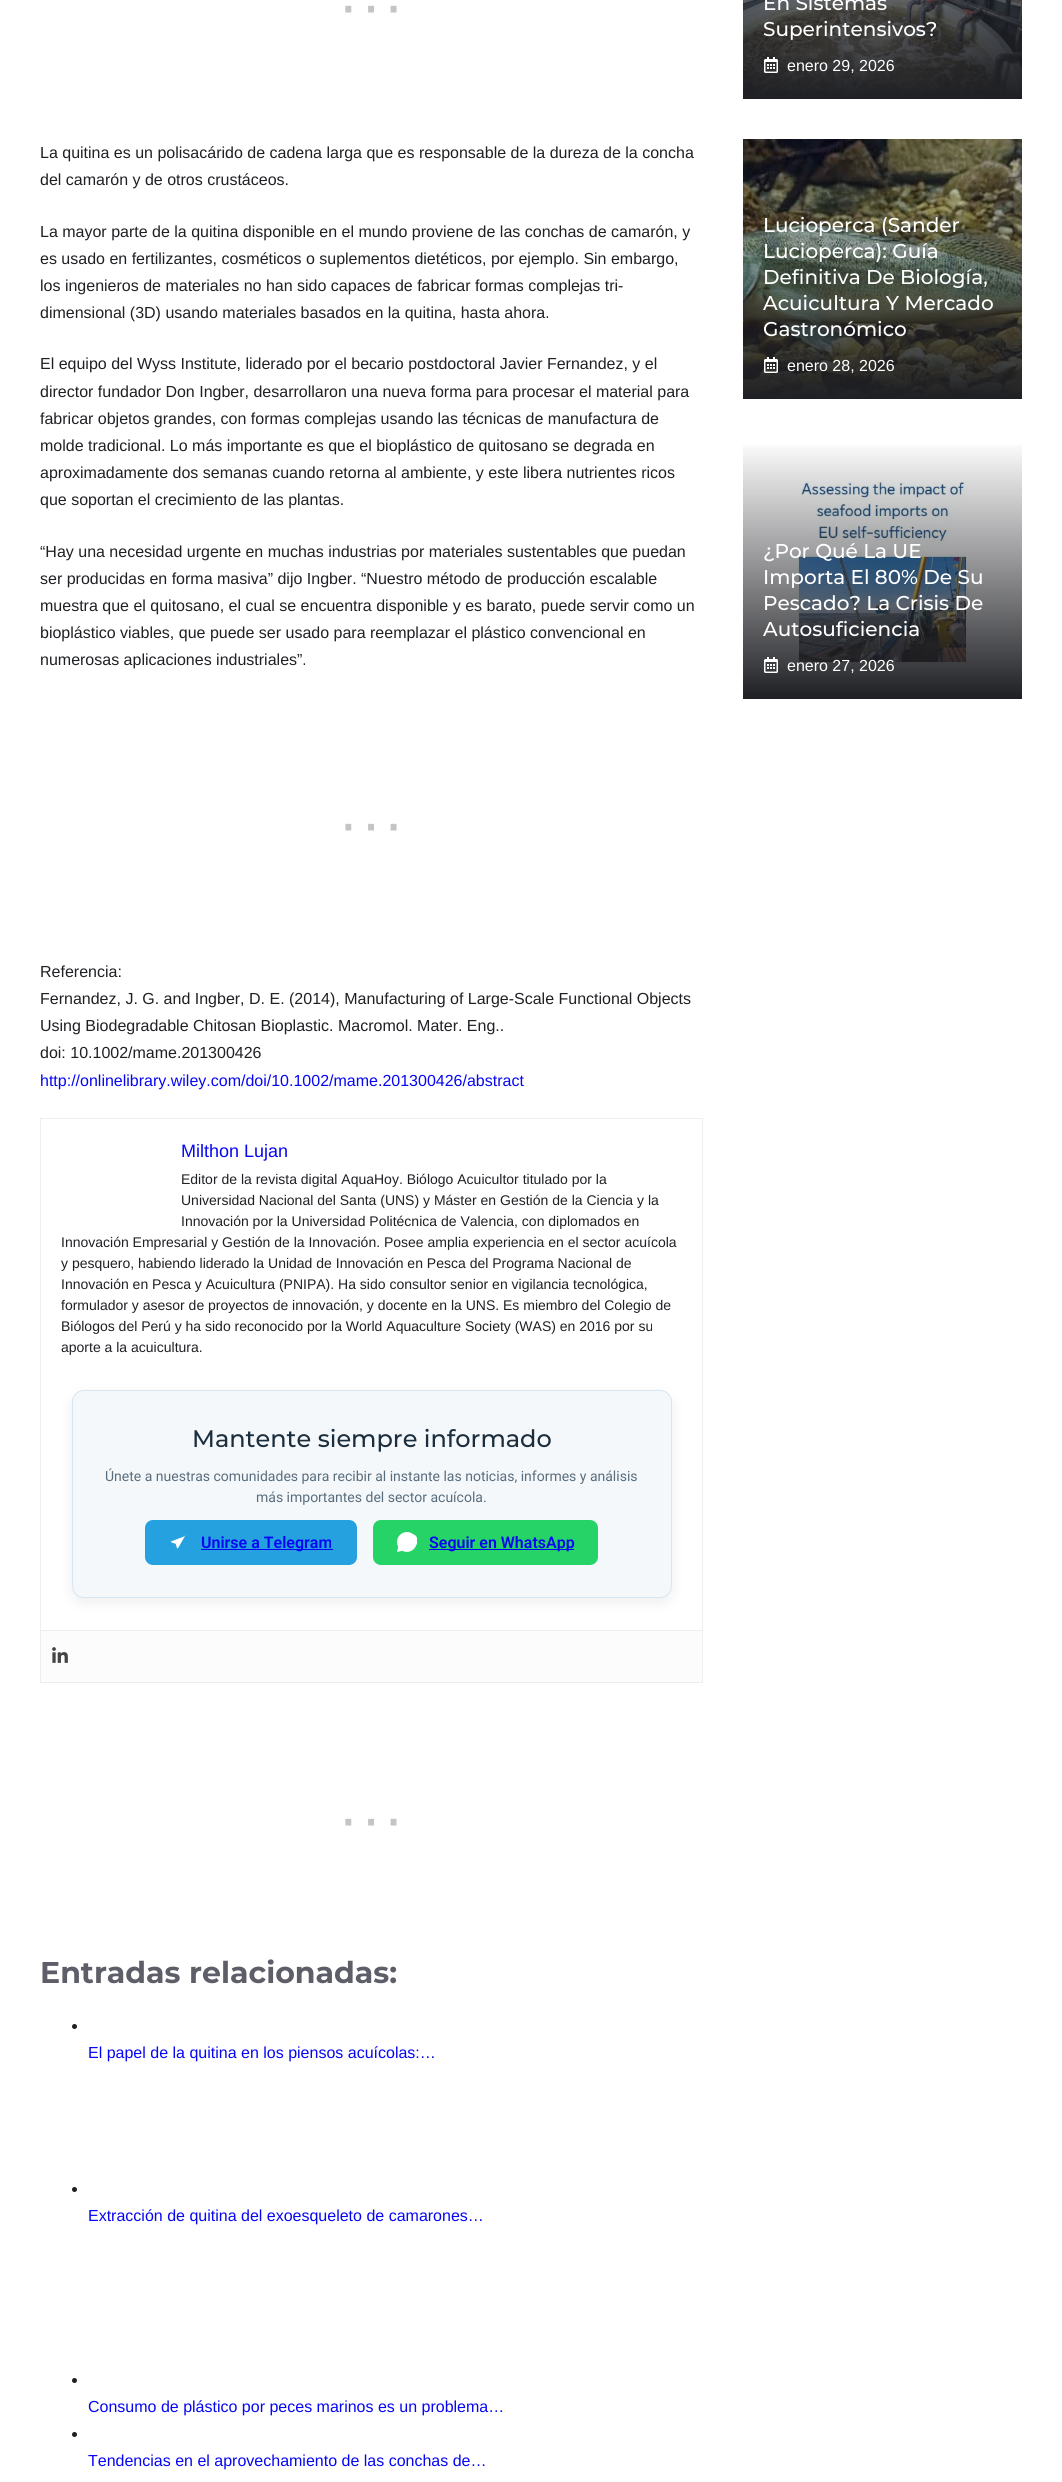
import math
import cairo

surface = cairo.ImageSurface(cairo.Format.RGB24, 1062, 2482)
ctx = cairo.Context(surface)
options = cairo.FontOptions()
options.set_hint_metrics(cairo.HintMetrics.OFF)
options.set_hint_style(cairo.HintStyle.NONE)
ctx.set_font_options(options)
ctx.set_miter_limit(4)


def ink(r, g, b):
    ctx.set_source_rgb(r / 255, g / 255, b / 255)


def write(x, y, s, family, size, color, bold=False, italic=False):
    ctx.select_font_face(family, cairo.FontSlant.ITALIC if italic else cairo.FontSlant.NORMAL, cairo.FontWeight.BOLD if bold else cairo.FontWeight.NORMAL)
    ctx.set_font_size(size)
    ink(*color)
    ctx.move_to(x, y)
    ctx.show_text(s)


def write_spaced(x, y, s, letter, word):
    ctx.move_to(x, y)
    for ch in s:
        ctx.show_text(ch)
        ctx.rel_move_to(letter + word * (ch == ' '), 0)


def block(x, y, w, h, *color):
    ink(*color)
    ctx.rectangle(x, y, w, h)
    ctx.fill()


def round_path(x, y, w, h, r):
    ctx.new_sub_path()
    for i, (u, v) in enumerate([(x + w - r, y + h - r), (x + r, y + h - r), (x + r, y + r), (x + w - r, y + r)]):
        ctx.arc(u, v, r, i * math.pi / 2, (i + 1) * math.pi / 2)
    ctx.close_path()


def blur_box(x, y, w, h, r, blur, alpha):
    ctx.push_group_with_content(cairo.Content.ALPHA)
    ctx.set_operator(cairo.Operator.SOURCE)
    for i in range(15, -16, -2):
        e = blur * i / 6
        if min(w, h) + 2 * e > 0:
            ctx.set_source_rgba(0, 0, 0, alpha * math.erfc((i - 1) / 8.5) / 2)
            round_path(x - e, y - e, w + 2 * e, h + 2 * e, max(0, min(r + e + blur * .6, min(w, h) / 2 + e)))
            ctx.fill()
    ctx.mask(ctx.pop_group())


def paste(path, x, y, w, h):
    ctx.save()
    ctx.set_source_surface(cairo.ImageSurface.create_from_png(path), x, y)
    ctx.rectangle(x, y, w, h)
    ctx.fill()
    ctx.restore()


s1 = dict(family="Liberation Sans", size=16, color=(31, 32, 36))
s2 = dict(family="Liberation Sans", size=16, color=(6, 6, 245))
s3 = dict(family="Liberation Sans", size=18, color=(6, 6, 245))
s4 = dict(family="Liberation Sans", size=14, color=(31, 32, 36))
s5 = dict(family="Montserrat Medium", size=24, color=(28, 46, 62))
s6 = dict(family="Roboto", size=14, color=(90, 109, 125))
s7 = dict(family="Roboto SemiBold", size=16, color=(6, 6, 245))
s8 = dict(family="Montserrat", size=30, color=(94, 94, 105), bold=True)
s9 = dict(family="Montserrat Medium", size=20, color=(255, 255, 255))
s10 = dict(family="Liberation Sans", size=16, color=(255, 255, 255))

ink(255, 255, 255)
ctx.paint()
ctx.select_font_face("Liberation Sans")
ctx.set_font_size(62)
ink(196, 196, 196)
write_spaced(338, 26, "···", 2, 0)
write(40, 158, "La quitina es un polisacárido de cadena larga que es responsable de la dureza de la concha", **s1)
write(40, 185, "del camarón y de otros crustáceos.", **s1)
write(40, 237, "La mayor parte de la quitina disponible en el mundo proviene de las conchas de camarón, y", **s1)
write(40, 264, "es usado en fertilizantes, cosméticos o suplementos dietéticos, por ejemplo. Sin embargo,", **s1)
write(40, 291, "los ingenieros de materiales no han sido capaces de fabricar formas complejas tri-", **s1)
write(40, 318, "dimensional (3D) usando materiales basados en la quitina, hasta ahora.", **s1)
write(40, 369, "El equipo del Wyss Institute, liderado por el becario postdoctoral Javier Fernandez, y el", **s1)
write(40, 397, "director fundador Don Ingber, desarrollaron una nueva forma para procesar el material para", **s1)
write(40, 424, "fabricar objetos grandes, con formas complejas usando las técnicas de manufactura de", **s1)
write(40, 451, "molde tradicional. Lo más importante es que el bioplástico de quitosano se degrada en", **s1)
write(40, 478, "aproximadamente dos semanas cuando retorna al ambiente, y este libera nutrientes ricos", **s1)
write(40, 505, "que soportan el crecimiento de las plantas.", **s1)
write(40, 557, "“Hay una necesidad urgente en muchas industrias por materiales sustentables que puedan", **s1)
write(40, 584, "ser producidas en forma masiva” dijo Ingber. “Nuestro método de producción escalable", **s1)
write(40, 611, "muestra que el quitosano, el cual se encuentra disponible y es barato, puede servir como un", **s1)
write(40, 638, "bioplástico viables, que puede ser usado para reemplazar el plástico convencional en", **s1)
write(40, 665, "numerosas aplicaciones industriales”.", **s1)
ctx.set_font_size(62)
ink(196, 196, 196)
write_spaced(338, 844, "···", 2, 0)
write(40, 977, "Referencia:", **s1)
write(40, 1004, "Fernandez, J. G. and Ingber, D. E. (2014), Manufacturing of Large-Scale Functional Objects", **s1)
write(40, 1031, "Using Biodegradable Chitosan Bioplastic. Macromol. Mater. Eng..", **s1)
write(40, 1058, "doi: 10.1002/mame.201300426", **s1)
write(40, 1086, "http://onlinelibrary.wiley.com/doi/10.1002/mame.201300426/abstract", **s2)
ctx.rectangle(40.5, 1118.5, 662, 564)
ink(238, 238, 238)
ctx.set_line_width(1)
ctx.stroke()
write(181, 1157, "Milthon Lujan", **s3)
write(181, 1184, "Editor de la revista digital AquaHoy. Biólogo Acuicultor titulado por la", **s4)
write(181, 1205, "Universidad Nacional del Santa (UNS) y Máster en Gestión de la Ciencia y la", **s4)
write(181, 1226, "Innovación por la Universidad Politécnica de Valencia, con diplomados en", **s4)
write(61, 1247, "Innovación Empresarial y Gestión de la Innovación. Posee amplia experiencia en el sector acuícola", **s4)
write(61, 1268, "y pesquero, habiendo liderado la Unidad de Innovación en Pesca del Programa Nacional de", **s4)
write(61, 1289, "Innovación en Pesca y Acuicultura (PNIPA). Ha sido consultor senior en vigilancia tecnológica,", **s4)
write(61, 1310, "formulador y asesor de proyectos de innovación, y docente en la UNS. Es miembro del Colegio de", **s4)
write(61, 1331, "Biólogos del Perú y ha sido reconocido por la World Aquaculture Society (WAS) en 2016 por su", **s4)
write(61, 1352, "aporte a la acuicultura.", **s4)
ink(0, 0, 0)
blur_box(72, 1395, 600, 208, 12, 7.5, 0.07)
ink(244, 248, 251)
round_path(72.5, 1390.5, 599, 207, 11.5)
ctx.fill_preserve()
ink(214, 230, 242)
ctx.stroke()
write(192, 1447, "Mantente siempre informado", **s5)
write(105, 1481, "Únete a nuestras comunidades para recibir al instante las noticias, informes y análisis", **s6)
write(256, 1502, "más importantes del sector acuícola.", **s6)
ink(36, 161, 222)
round_path(145, 1520, 212, 45, 8)
ctx.fill()
paste("pic1.png", 171, 1535, 16, 14)
block(201, 1549, 132, 1, 6, 6, 245)
write(201, 1548, "Unirse a Telegram", **s7)
ink(37, 211, 102)
round_path(373, 1520, 225, 45, 8)
ctx.fill()
paste("pic2.png", 397, 1532, 20, 20)
block(429, 1549, 145, 1, 6, 6, 245)
write(429, 1548, "Seguir en WhatsApp", **s7)
block(41, 1631, 661, 51, 252, 252, 252)
block(41, 1630, 661, 1, 238, 238, 238)
paste("pic3.png", 52, 1647, 16, 16)
ctx.select_font_face("Liberation Sans")
ctx.set_font_size(62)
ink(196, 196, 196)
write_spaced(338, 1839, "···", 2, 0)
write(40, 1983, "Entradas relacionadas:", **s8)
ink(31, 32, 36)
ctx.new_path()
ctx.arc(74.5, 2026.5, 2.5, 0, 2 * math.pi)
ctx.fill()
write(88, 2058, "El papel de la quitina en los piensos acuícolas:…", **s2)
ink(31, 32, 36)
ctx.new_path()
ctx.arc(74.5, 2189.5, 2.5, 0, 2 * math.pi)
ctx.fill()
write(88, 2221, "Extracción de quitina del exoesqueleto de camarones…", **s2)
ink(31, 32, 36)
ctx.new_path()
ctx.arc(74.5, 2380.5, 2.5, 0, 2 * math.pi)
ctx.fill()
write(88, 2412, "Consumo de plástico por peces marinos es un problema…", **s2)
ink(31, 32, 36)
ctx.new_path()
ctx.arc(74.5, 2434.5, 2.5, 0, 2 * math.pi)
ctx.fill()
write(88, 2466, "Tendencias en el aprovechamiento de las conchas de…", **s2)
paste("pic4.png", 743, 0, 279, 99)
write(763, 10, "En Sistemas", **s9)
write(763, 36, "Superintensivos?", **s9)
paste("pic5.png", 764, 57, 14, 16)
write(787, 71, "enero 29, 2026", **s10)
paste("pic6.png", 743, 139, 279, 260)
write(763, 232, "Lucioperca (Sander", **s9)
write(763, 258, "Lucioperca): Guía", **s9)
write(763, 284, "Definitiva De Biología,", **s9)
write(763, 310, "Acuicultura Y Mercado", **s9)
write(763, 336, "Gastronómico", **s9)
paste("pic7.png", 764, 357, 14, 16)
write(787, 371, "enero 28, 2026", **s10)
paste("pic8.png", 795, 481, 173, 185)
gradient = cairo.LinearGradient(883, 439, 883, 699)
gradient.add_color_stop_rgba(0, 0.122, 0.125, 0.141, 0)
gradient.add_color_stop_rgba(1, 0.122, 0.125, 0.141, 1)
ctx.set_source(gradient)
ctx.rectangle(743, 445, 279, 254)
ctx.fill()
write(763, 558, "¿Por Qué La UE", **s9)
write(763, 584, "Importa El 80% De Su", **s9)
write(763, 610, "Pescado? La Crisis De", **s9)
write(763, 636, "Autosuficiencia", **s9)
paste("pic9.png", 764, 657, 14, 16)
write(787, 671, "enero 27, 2026", **s10)
surface.write_to_png("screenshot.png")
